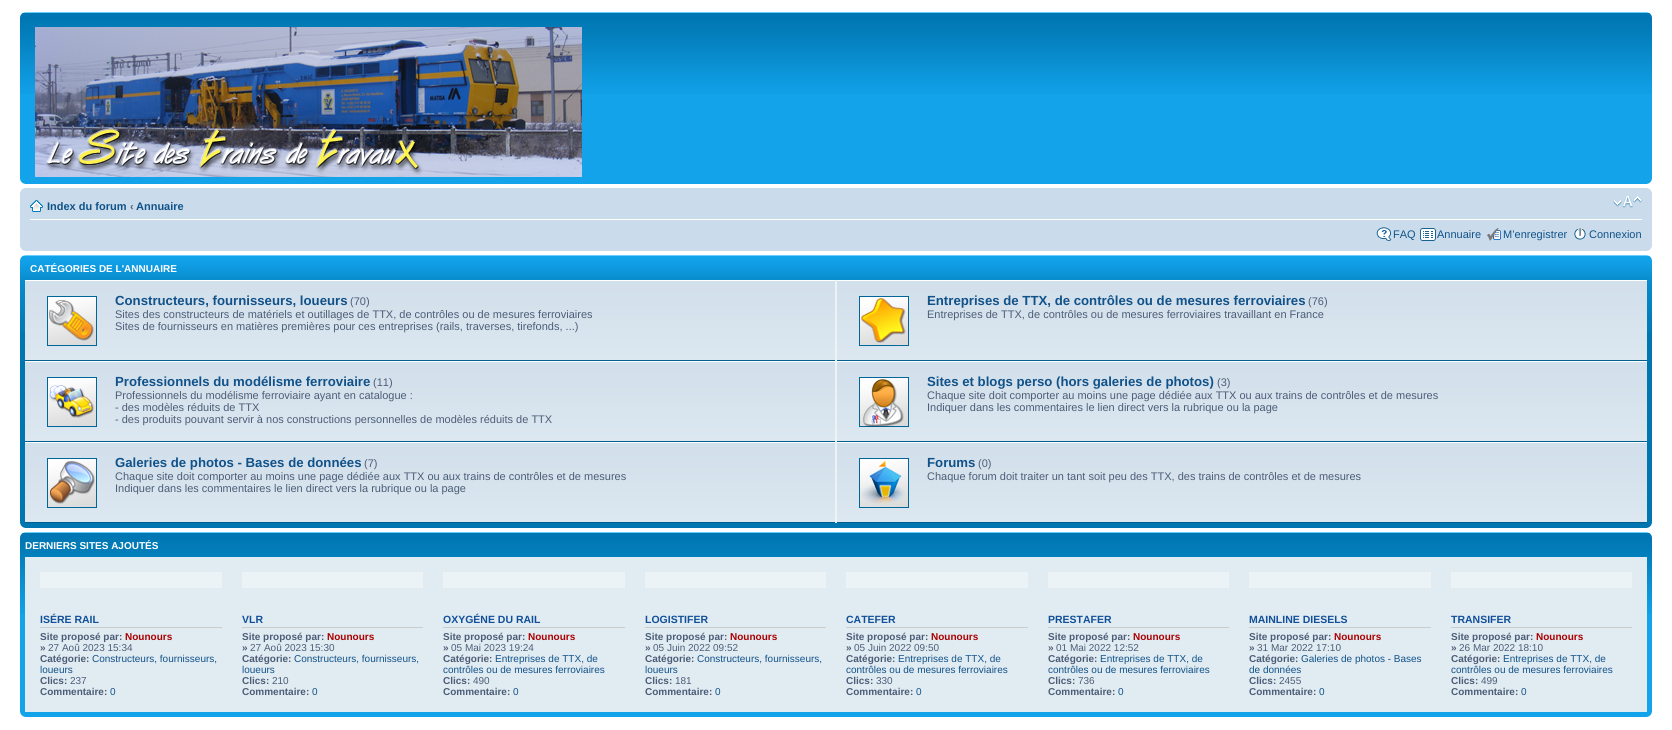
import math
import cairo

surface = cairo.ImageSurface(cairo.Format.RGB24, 1672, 730)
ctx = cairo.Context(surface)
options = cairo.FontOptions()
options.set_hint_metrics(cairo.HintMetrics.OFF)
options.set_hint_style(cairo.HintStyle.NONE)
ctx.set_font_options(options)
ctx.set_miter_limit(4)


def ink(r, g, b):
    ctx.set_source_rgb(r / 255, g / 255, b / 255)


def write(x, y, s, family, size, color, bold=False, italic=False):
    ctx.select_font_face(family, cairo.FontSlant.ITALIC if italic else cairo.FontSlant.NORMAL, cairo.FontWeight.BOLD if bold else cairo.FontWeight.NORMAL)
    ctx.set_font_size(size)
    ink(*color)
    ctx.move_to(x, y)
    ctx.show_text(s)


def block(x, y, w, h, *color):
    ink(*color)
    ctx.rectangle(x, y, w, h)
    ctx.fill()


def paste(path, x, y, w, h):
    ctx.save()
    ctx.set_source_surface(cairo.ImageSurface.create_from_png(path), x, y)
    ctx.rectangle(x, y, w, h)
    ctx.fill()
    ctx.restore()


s1 = dict(family="Liberation Sans", size=11, color=(16, 82, 137), bold=True)
s2 = dict(family="Liberation Sans", size=11, color=(83, 100, 130), bold=True)
s3 = dict(family="Liberation Sans", size=11, color=(16, 82, 137))
s4 = dict(family="Liberation Sans", size=10, color=(255, 255, 255), bold=True)
s5 = dict(family="Liberation Sans", size=13.2, color=(16, 82, 137), bold=True)
s6 = dict(family="Liberation Sans", size=11, color=(76, 93, 119))
s7 = dict(family="Liberation Sans", size=10.5, color=(17, 80, 152), bold=True)
s8 = dict(family="Liberation Sans", size=10, color=(76, 93, 119), bold=True)
s9 = dict(family="Liberation Sans", size=10, color=(170, 0, 0), bold=True)
s10 = dict(family="Liberation Sans", size=10, color=(76, 93, 119))
s11 = dict(family="Liberation Sans", size=10, color=(16, 82, 137))

ink(255, 255, 255)
ctx.paint()
block(20, 94, 1632, 90, 18, 163, 235)
paste("pic1.png", 20, 12, 1632, 82)
paste("pic2.png", 20, 12, 5, 5)
paste("pic3.png", 1647, 12, 5, 5)
paste("pic4.png", 35, 27, 547, 150)
paste("pic5.png", 20, 179, 5, 5)
paste("pic6.png", 1647, 179, 5, 5)
block(20, 188, 1632, 63, 202, 220, 235)
paste("pic7.png", 20, 188, 5, 5)
paste("pic8.png", 1647, 188, 5, 5)
block(30, 219, 1612, 1, 255, 255, 255)
paste("pic9.png", 30, 200, 13, 12)
write(47, 210, "Index du forum", **s1)
write(130, 210, "‹", **s2)
write(136, 210, "Annuaire", **s1)
paste("pic10.png", 1613, 196, 29, 12)
paste("pic11.png", 1376, 227, 16, 14)
write(1393, 238, "FAQ", **s3)
paste("pic12.png", 1420, 228, 16, 13)
write(1437, 238, "Annuaire", **s3)
paste("pic13.png", 1487, 228, 14, 13)
write(1503, 238, "M’enregistrer", **s3)
paste("pic14.png", 1574, 228, 12, 12)
write(1589, 238, "Connexion", **s3)
paste("pic15.png", 20, 246, 5, 5)
paste("pic16.png", 1647, 246, 5, 5)
block(20, 332, 1632, 196, 0, 118, 177)
paste("pic17.png", 20, 255, 1632, 77)
paste("pic18.png", 20, 255, 5, 5)
paste("pic19.png", 1647, 255, 5, 5)
write(30, 272, "CATÉGORIES DE L'ANNUAIRE", **s4)
block(835, 280, 2, 243, 236, 243, 247)
paste("pic20.png", 25, 281, 810, 79)
block(25, 280, 810, 1, 255, 255, 255)
block(25, 360, 810, 1, 0, 96, 143)
paste("pic21.png", 47, 296, 50, 50)
write(115, 305, "Constructeurs, fournisseurs, loueurs", **s5)
write(350, 305, "(70)", **s6)
write(115, 318, "Sites des constructeurs de matériels et outillages de TTX, de contrôles ou de mesures ferroviaires", **s6)
write(115, 330, "Sites de fournisseurs en matières premières pour ces entreprises (rails, traverses, tirefonds, ...)", **s6)
paste("pic20.png", 837, 281, 810, 79)
block(837, 280, 810, 1, 255, 255, 255)
block(837, 360, 810, 1, 0, 96, 143)
paste("pic22.png", 859, 296, 50, 50)
write(927, 305, "Entreprises de TTX, de contrôles ou de mesures ferroviaires", **s5)
write(1308, 305, "(76)", **s6)
write(927, 318, "Entreprises de TTX, de contrôles ou de mesures ferroviaires travaillant en France", **s6)
paste("pic20.png", 25, 362, 810, 79)
block(25, 361, 810, 1, 255, 255, 255)
block(25, 441, 810, 1, 0, 96, 143)
paste("pic23.png", 47, 377, 50, 50)
write(115, 386, "Professionnels du modélisme ferroviaire", **s5)
write(373, 386, "(11)", **s6)
write(115, 399, "Professionnels du modélisme ferroviaire ayant en catalogue :", **s6)
write(115, 411, "- des modèles réduits de TTX", **s6)
write(115, 423, "- des produits pouvant servir à nos constructions personnelles de modèles réduits de TTX", **s6)
paste("pic20.png", 837, 362, 810, 79)
block(837, 361, 810, 1, 255, 255, 255)
block(837, 441, 810, 1, 0, 96, 143)
paste("pic24.png", 859, 377, 50, 50)
write(927, 386, "Sites et blogs perso (hors galeries de photos)", **s5)
write(1217, 386, "(3)", **s6)
write(927, 399, "Chaque site doit comporter au moins une page dédiée aux TTX ou aux trains de contrôles et de mesures", **s6)
write(927, 411, "Indiquer dans les commentaires le lien direct vers la rubrique ou la page", **s6)
paste("pic20.png", 25, 443, 810, 79)
block(25, 442, 810, 1, 255, 255, 255)
block(25, 522, 810, 1, 0, 96, 143)
paste("pic25.png", 47, 458, 50, 50)
write(115, 467, "Galeries de photos - Bases de données", **s5)
write(364, 467, "(7)", **s6)
write(115, 480, "Chaque site doit comporter au moins une page dédiée aux TTX ou aux trains de contrôles et de mesures", **s6)
write(115, 492, "Indiquer dans les commentaires le lien direct vers la rubrique ou la page", **s6)
paste("pic20.png", 837, 443, 810, 79)
block(837, 442, 810, 1, 255, 255, 255)
block(837, 522, 810, 1, 0, 96, 143)
paste("pic26.png", 859, 458, 50, 50)
write(927, 467, "Forums", **s5)
write(978, 467, "(0)", **s6)
write(927, 480, "Chaque forum doit traiter un tant soit peu des TTX, des trains de contrôles et de mesures", **s6)
paste("pic27.png", 20, 523, 5, 5)
paste("pic28.png", 1647, 523, 5, 5)
block(20, 614, 1632, 103, 18, 163, 235)
paste("pic1.png", 20, 532, 1632, 82)
paste("pic2.png", 20, 532, 5, 5)
paste("pic3.png", 1647, 532, 5, 5)
write(25, 549, "DERNIERS SITES AJOUTÉS", **s4)
block(25, 557, 1622, 155, 225, 235, 242)
block(40, 572, 182, 16, 236, 243, 247)
block(40, 627, 182, 1, 204, 204, 204)
write(40, 623, "ISÉRE RAIL", **s7)
write(40, 640, "Site proposé par:", **s8)
write(125, 640, "Nounours", **s9)
write(40, 651, "»", **s8)
write(48, 651, "27 Aoû 2023 15:34", **s10)
write(40, 662, "Catégorie:", **s8)
write(92, 662, "Constructeurs, fournisseurs,", **s11)
write(40, 673, "loueurs", **s11)
write(40, 684, "Clics:", **s8)
write(70, 684, "237", **s10)
write(40, 695, "Commentaire:", **s8)
write(110, 695, "0", **s11)
block(242, 572, 181, 16, 236, 243, 247)
block(242, 627, 181, 1, 204, 204, 204)
write(242, 623, "VLR", **s7)
write(242, 640, "Site proposé par:", **s8)
write(327, 640, "Nounours", **s9)
write(242, 651, "»", **s8)
write(250, 651, "27 Aoû 2023 15:30", **s10)
write(242, 662, "Catégorie:", **s8)
write(294, 662, "Constructeurs, fournisseurs,", **s11)
write(242, 673, "loueurs", **s11)
write(242, 684, "Clics:", **s8)
write(272, 684, "210", **s10)
write(242, 695, "Commentaire:", **s8)
write(312, 695, "0", **s11)
block(443, 572, 182, 16, 236, 243, 247)
block(443, 627, 182, 1, 204, 204, 204)
write(443, 623, "OXYGÉNE DU RAIL", **s7)
write(443, 640, "Site proposé par:", **s8)
write(528, 640, "Nounours", **s9)
write(443, 651, "»", **s8)
write(451, 651, "05 Mai 2023 19:24", **s10)
write(443, 662, "Catégorie:", **s8)
write(495, 662, "Entreprises de TTX, de", **s11)
write(443, 673, "contrôles ou de mesures ferroviaires", **s11)
write(443, 684, "Clics:", **s8)
write(473, 684, "490", **s10)
write(443, 695, "Commentaire:", **s8)
write(513, 695, "0", **s11)
block(645, 572, 181, 16, 236, 243, 247)
block(645, 627, 181, 1, 204, 204, 204)
write(645, 623, "LOGISTIFER", **s7)
write(645, 640, "Site proposé par:", **s8)
write(730, 640, "Nounours", **s9)
write(645, 651, "»", **s8)
write(653, 651, "05 Juin 2022 09:52", **s10)
write(645, 662, "Catégorie:", **s8)
write(697, 662, "Constructeurs, fournisseurs,", **s11)
write(645, 673, "loueurs", **s11)
write(645, 684, "Clics:", **s8)
write(675, 684, "181", **s10)
write(645, 695, "Commentaire:", **s8)
write(715, 695, "0", **s11)
block(846, 572, 182, 16, 236, 243, 247)
block(846, 627, 182, 1, 204, 204, 204)
write(846, 623, "CATEFER", **s7)
write(846, 640, "Site proposé par:", **s8)
write(931, 640, "Nounours", **s9)
write(846, 651, "»", **s8)
write(854, 651, "05 Juin 2022 09:50", **s10)
write(846, 662, "Catégorie:", **s8)
write(898, 662, "Entreprises de TTX, de", **s11)
write(846, 673, "contrôles ou de mesures ferroviaires", **s11)
write(846, 684, "Clics:", **s8)
write(876, 684, "330", **s10)
write(846, 695, "Commentaire:", **s8)
write(916, 695, "0", **s11)
block(1048, 572, 181, 16, 236, 243, 247)
block(1048, 627, 181, 1, 204, 204, 204)
write(1048, 623, "PRESTAFER", **s7)
write(1048, 640, "Site proposé par:", **s8)
write(1133, 640, "Nounours", **s9)
write(1048, 651, "»", **s8)
write(1056, 651, "01 Mai 2022 12:52", **s10)
write(1048, 662, "Catégorie:", **s8)
write(1100, 662, "Entreprises de TTX, de", **s11)
write(1048, 673, "contrôles ou de mesures ferroviaires", **s11)
write(1048, 684, "Clics:", **s8)
write(1078, 684, "736", **s10)
write(1048, 695, "Commentaire:", **s8)
write(1118, 695, "0", **s11)
block(1249, 572, 182, 16, 236, 243, 247)
block(1249, 627, 182, 1, 204, 204, 204)
write(1249, 623, "MAINLINE DIESELS", **s7)
write(1249, 640, "Site proposé par:", **s8)
write(1334, 640, "Nounours", **s9)
write(1249, 651, "»", **s8)
write(1257, 651, "31 Mar 2022 17:10", **s10)
write(1249, 662, "Catégorie:", **s8)
write(1301, 662, "Galeries de photos - Bases", **s11)
write(1249, 673, "de données", **s11)
write(1249, 684, "Clics:", **s8)
write(1279, 684, "2455", **s10)
write(1249, 695, "Commentaire:", **s8)
write(1319, 695, "0", **s11)
block(1451, 572, 181, 16, 236, 243, 247)
block(1451, 627, 181, 1, 204, 204, 204)
write(1451, 623, "TRANSIFER", **s7)
write(1451, 640, "Site proposé par:", **s8)
write(1536, 640, "Nounours", **s9)
write(1451, 651, "»", **s8)
write(1459, 651, "26 Mar 2022 18:10", **s10)
write(1451, 662, "Catégorie:", **s8)
write(1503, 662, "Entreprises de TTX, de", **s11)
write(1451, 673, "contrôles ou de mesures ferroviaires", **s11)
write(1451, 684, "Clics:", **s8)
write(1481, 684, "499", **s10)
write(1451, 695, "Commentaire:", **s8)
write(1521, 695, "0", **s11)
paste("pic5.png", 20, 712, 5, 5)
paste("pic6.png", 1647, 712, 5, 5)
surface.write_to_png("screenshot.png")
